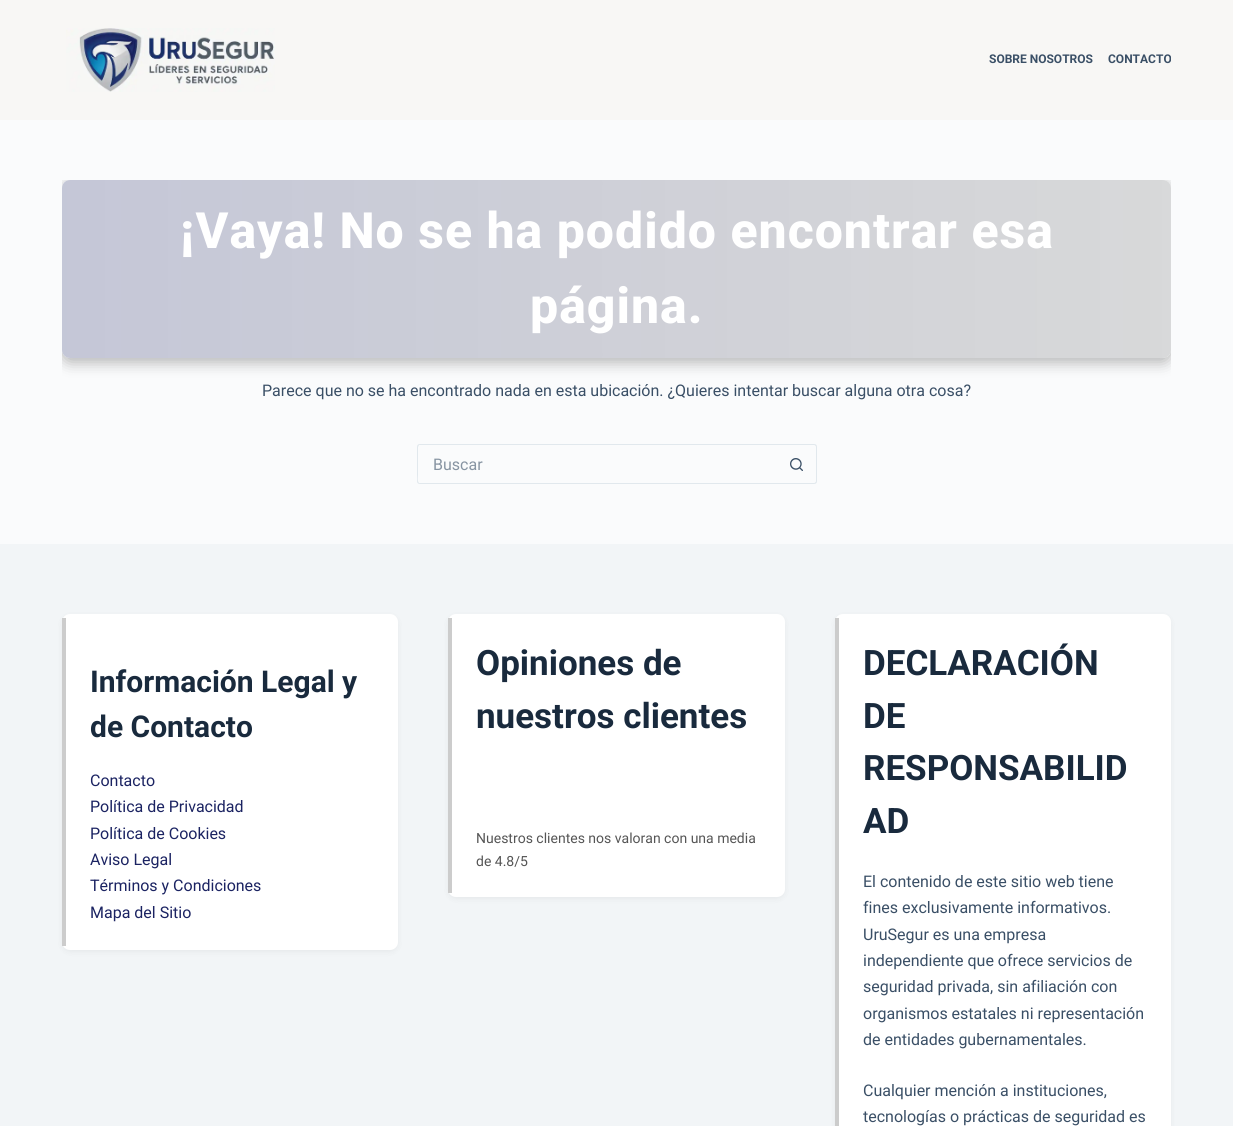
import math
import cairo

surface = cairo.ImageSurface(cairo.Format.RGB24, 1233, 1126)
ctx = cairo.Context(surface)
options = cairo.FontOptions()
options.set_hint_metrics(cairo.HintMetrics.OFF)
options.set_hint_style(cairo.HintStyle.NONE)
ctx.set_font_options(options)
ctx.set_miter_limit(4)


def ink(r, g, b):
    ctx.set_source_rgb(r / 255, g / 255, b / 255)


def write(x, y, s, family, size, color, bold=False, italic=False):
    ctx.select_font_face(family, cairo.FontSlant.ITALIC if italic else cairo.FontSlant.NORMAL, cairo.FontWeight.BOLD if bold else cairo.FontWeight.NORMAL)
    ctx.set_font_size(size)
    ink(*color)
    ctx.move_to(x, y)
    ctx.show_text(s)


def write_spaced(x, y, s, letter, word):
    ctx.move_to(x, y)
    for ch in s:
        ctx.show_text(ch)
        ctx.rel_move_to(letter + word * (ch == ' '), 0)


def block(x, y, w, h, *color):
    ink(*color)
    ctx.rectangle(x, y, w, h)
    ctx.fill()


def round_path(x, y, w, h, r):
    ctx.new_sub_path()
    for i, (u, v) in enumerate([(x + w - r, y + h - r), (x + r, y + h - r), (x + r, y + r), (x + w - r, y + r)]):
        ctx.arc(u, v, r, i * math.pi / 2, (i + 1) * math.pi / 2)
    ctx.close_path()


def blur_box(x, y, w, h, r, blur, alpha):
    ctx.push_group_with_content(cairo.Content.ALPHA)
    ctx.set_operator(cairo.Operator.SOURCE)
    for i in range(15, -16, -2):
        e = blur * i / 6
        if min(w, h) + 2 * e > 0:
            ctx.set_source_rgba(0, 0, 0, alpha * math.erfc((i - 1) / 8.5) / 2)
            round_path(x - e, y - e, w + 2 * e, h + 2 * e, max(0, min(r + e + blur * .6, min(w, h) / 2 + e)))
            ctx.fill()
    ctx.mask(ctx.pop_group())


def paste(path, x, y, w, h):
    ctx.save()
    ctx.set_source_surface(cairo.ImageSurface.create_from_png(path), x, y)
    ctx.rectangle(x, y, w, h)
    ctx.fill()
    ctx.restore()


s1 = dict(family="Roboto", size=12, color=(58, 79, 102), bold=True)
s2 = dict(family="Roboto", size=16, color=(58, 79, 102))
s3 = dict(family="Roboto", size=16, color=(135, 148, 162))
s4 = dict(family="Roboto", size=30, color=(25, 42, 61), bold=True)
s5 = dict(family="Roboto", size=16, color=(27, 35, 98))
s6 = dict(family="Roboto", size=35, color=(25, 42, 61), bold=True)
s7 = dict(family="Roboto", size=14, color=(85, 85, 85))

ink(250, 251, 252)
ctx.paint()
block(0, 0, 1233, 120, 248, 247, 245)
paste("pic1.png", 66, 28, 209, 64)
write(989, 63, "SOBRE NOSOTROS", **s1)
write(1108, 63, "CONTACTO", **s1)
ctx.save()
ctx.rectangle(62, 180, 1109, 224)
ctx.clip()
ctx.set_fill_rule(cairo.FillRule.EVEN_ODD)
ctx.new_path()
ctx.move_to(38, 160)
ctx.line_to(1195, 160)
ctx.line_to(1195, 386)
ctx.line_to(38, 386)
ctx.close_path()
ctx.move_to(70, 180)
ctx.line_to(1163, 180)
ctx.curve_to(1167.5, 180, 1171, 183.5, 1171, 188)
ctx.line_to(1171, 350)
ctx.curve_to(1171, 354.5, 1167.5, 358, 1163, 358)
ctx.line_to(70, 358)
ctx.curve_to(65.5, 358, 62, 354.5, 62, 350)
ctx.line_to(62, 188)
ctx.curve_to(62, 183.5, 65.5, 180, 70, 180)
ctx.close_path()
ctx.clip()
ink(0, 0, 0)
blur_box(62, 184, 1109, 178, 8, 7.5, 0.3)
ctx.restore()
gradient = cairo.LinearGradient(62, 269, 1171, 269)
gradient.add_color_stop_rgba(0, 0.106, 0.137, 0.384, 0.24)
gradient.add_color_stop_rgba(1, 0.184, 0.184, 0.184, 0.17)
ctx.set_source(gradient)
round_path(62, 180, 1109, 178, 8)
ctx.fill()
ctx.select_font_face("Roboto ExtraBold")
ctx.set_font_size(50)
ink(255, 255, 255)
write_spaced(180, 248, "¡Vaya! No se ha podido encontrar esa", 1, 0)
write_spaced(530, 323, "página.", 1, 0)
write(262, 396, "Parece que no se ha encontrado nada en esta ubicación. ¿Quieres intentar buscar alguna otra cosa?", **s2)
ink(225, 232, 237)
ctx.set_fill_rule(cairo.FillRule.EVEN_ODD)
ctx.new_path()
ctx.move_to(420, 444)
ctx.line_to(777, 444)
ctx.line_to(777, 484)
ctx.line_to(420, 484)
ctx.curve_to(418, 484, 417, 483, 417, 481)
ctx.line_to(417, 447)
ctx.curve_to(417, 445, 418, 444, 420, 444)
ctx.close_path()
ctx.move_to(420, 445)
ctx.line_to(777, 445)
ctx.line_to(777, 483)
ctx.line_to(419, 483)
ctx.curve_to(417, 481, 418, 476, 418, 475)
ctx.line_to(418, 447)
ctx.line_to(419, 445)
ctx.close_path()
ctx.fill()
write(433, 470, "Buscar", **s3)
ink(225, 232, 237)
ctx.new_path()
ctx.move_to(777, 444)
ctx.line_to(814, 444)
ctx.curve_to(816, 444, 817, 445, 817, 447)
ctx.line_to(817, 481)
ctx.curve_to(817, 483, 816, 484, 814, 484)
ctx.line_to(777, 484)
ctx.close_path()
ctx.move_to(777, 445)
ctx.line_to(814, 445)
ctx.curve_to(815, 445, 816, 446, 816, 447)
ctx.line_to(816, 481)
ctx.curve_to(816, 482, 815, 483, 814, 483)
ctx.line_to(777, 483)
ctx.close_path()
ctx.fill()
paste("pic2.png", 790, 458, 13, 13)
ctx.new_path()
ctx.move_to(788.5, 465.5)
ctx.curve_to(788, 461, 790.5, 457.5, 794.5, 456.5)
ink(250, 251, 252)
ctx.set_line_width(1.5)
ctx.set_line_cap(cairo.LineCap.ROUND)
ctx.stroke()
block(0, 544, 1233, 582, 242, 245, 247)
ink(0, 0, 0)
blur_box(62, 616, 336, 336, 8, 3, 0.05)
ink(255, 255, 255)
round_path(62, 614, 336, 336, 8)
ctx.fill()
block(62, 618, 4, 328, 204, 204, 204)
write(90, 692, "Información Legal y", **s4)
write(90, 737, "de Contacto", **s4)
write(90, 786, "Contacto", **s5)
write(90, 812, "Política de Privacidad", **s5)
write(90, 839, "Política de Cookies", **s5)
write(90, 865, "Aviso Legal", **s5)
write(90, 891, "Términos y Condiciones", **s5)
write(90, 918, "Mapa del Sitio", **s5)
ink(0, 0, 0)
blur_box(448, 616, 337, 283, 8, 3, 0.05)
ink(255, 255, 255)
round_path(448, 614, 337, 283, 8)
ctx.fill()
block(448, 618, 4, 275, 204, 204, 204)
write(476, 675, "Opiniones de", **s6)
write(476, 728, "nuestros clientes", **s6)
write(476, 843, "Nuestros clientes nos valoran con una media", **s7)
write(476, 866, "de 4.8/5", **s7)
ink(0, 0, 0)
blur_box(835, 616, 336, 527, 8, 3, 0.05)
ink(255, 255, 255)
round_path(835, 614, 336, 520, 8)
ctx.fill()
block(835, 618, 4, 508, 204, 204, 204)
write(863, 675, "DECLARACIÓN", **s6)
write(863, 728, "DE", **s6)
write(863, 780, "RESPONSABILID", **s6)
write(863, 833, "AD", **s6)
write(863, 887, "El contenido de este sitio web tiene", **s2)
write(863, 913, "fines exclusivamente informativos.", **s2)
write(863, 940, "UruSegur es una empresa", **s2)
write(863, 966, "independiente que ofrece servicios de", **s2)
write(863, 992, "seguridad privada, sin afiliación con", **s2)
write(863, 1019, "organismos estatales ni representación", **s2)
write(863, 1045, "de entidades gubernamentales.", **s2)
write(863, 1096, "Cualquier mención a instituciones,", **s2)
write(863, 1122, "tecnologías o prácticas de seguridad es", **s2)
surface.write_to_png("screenshot.png")
